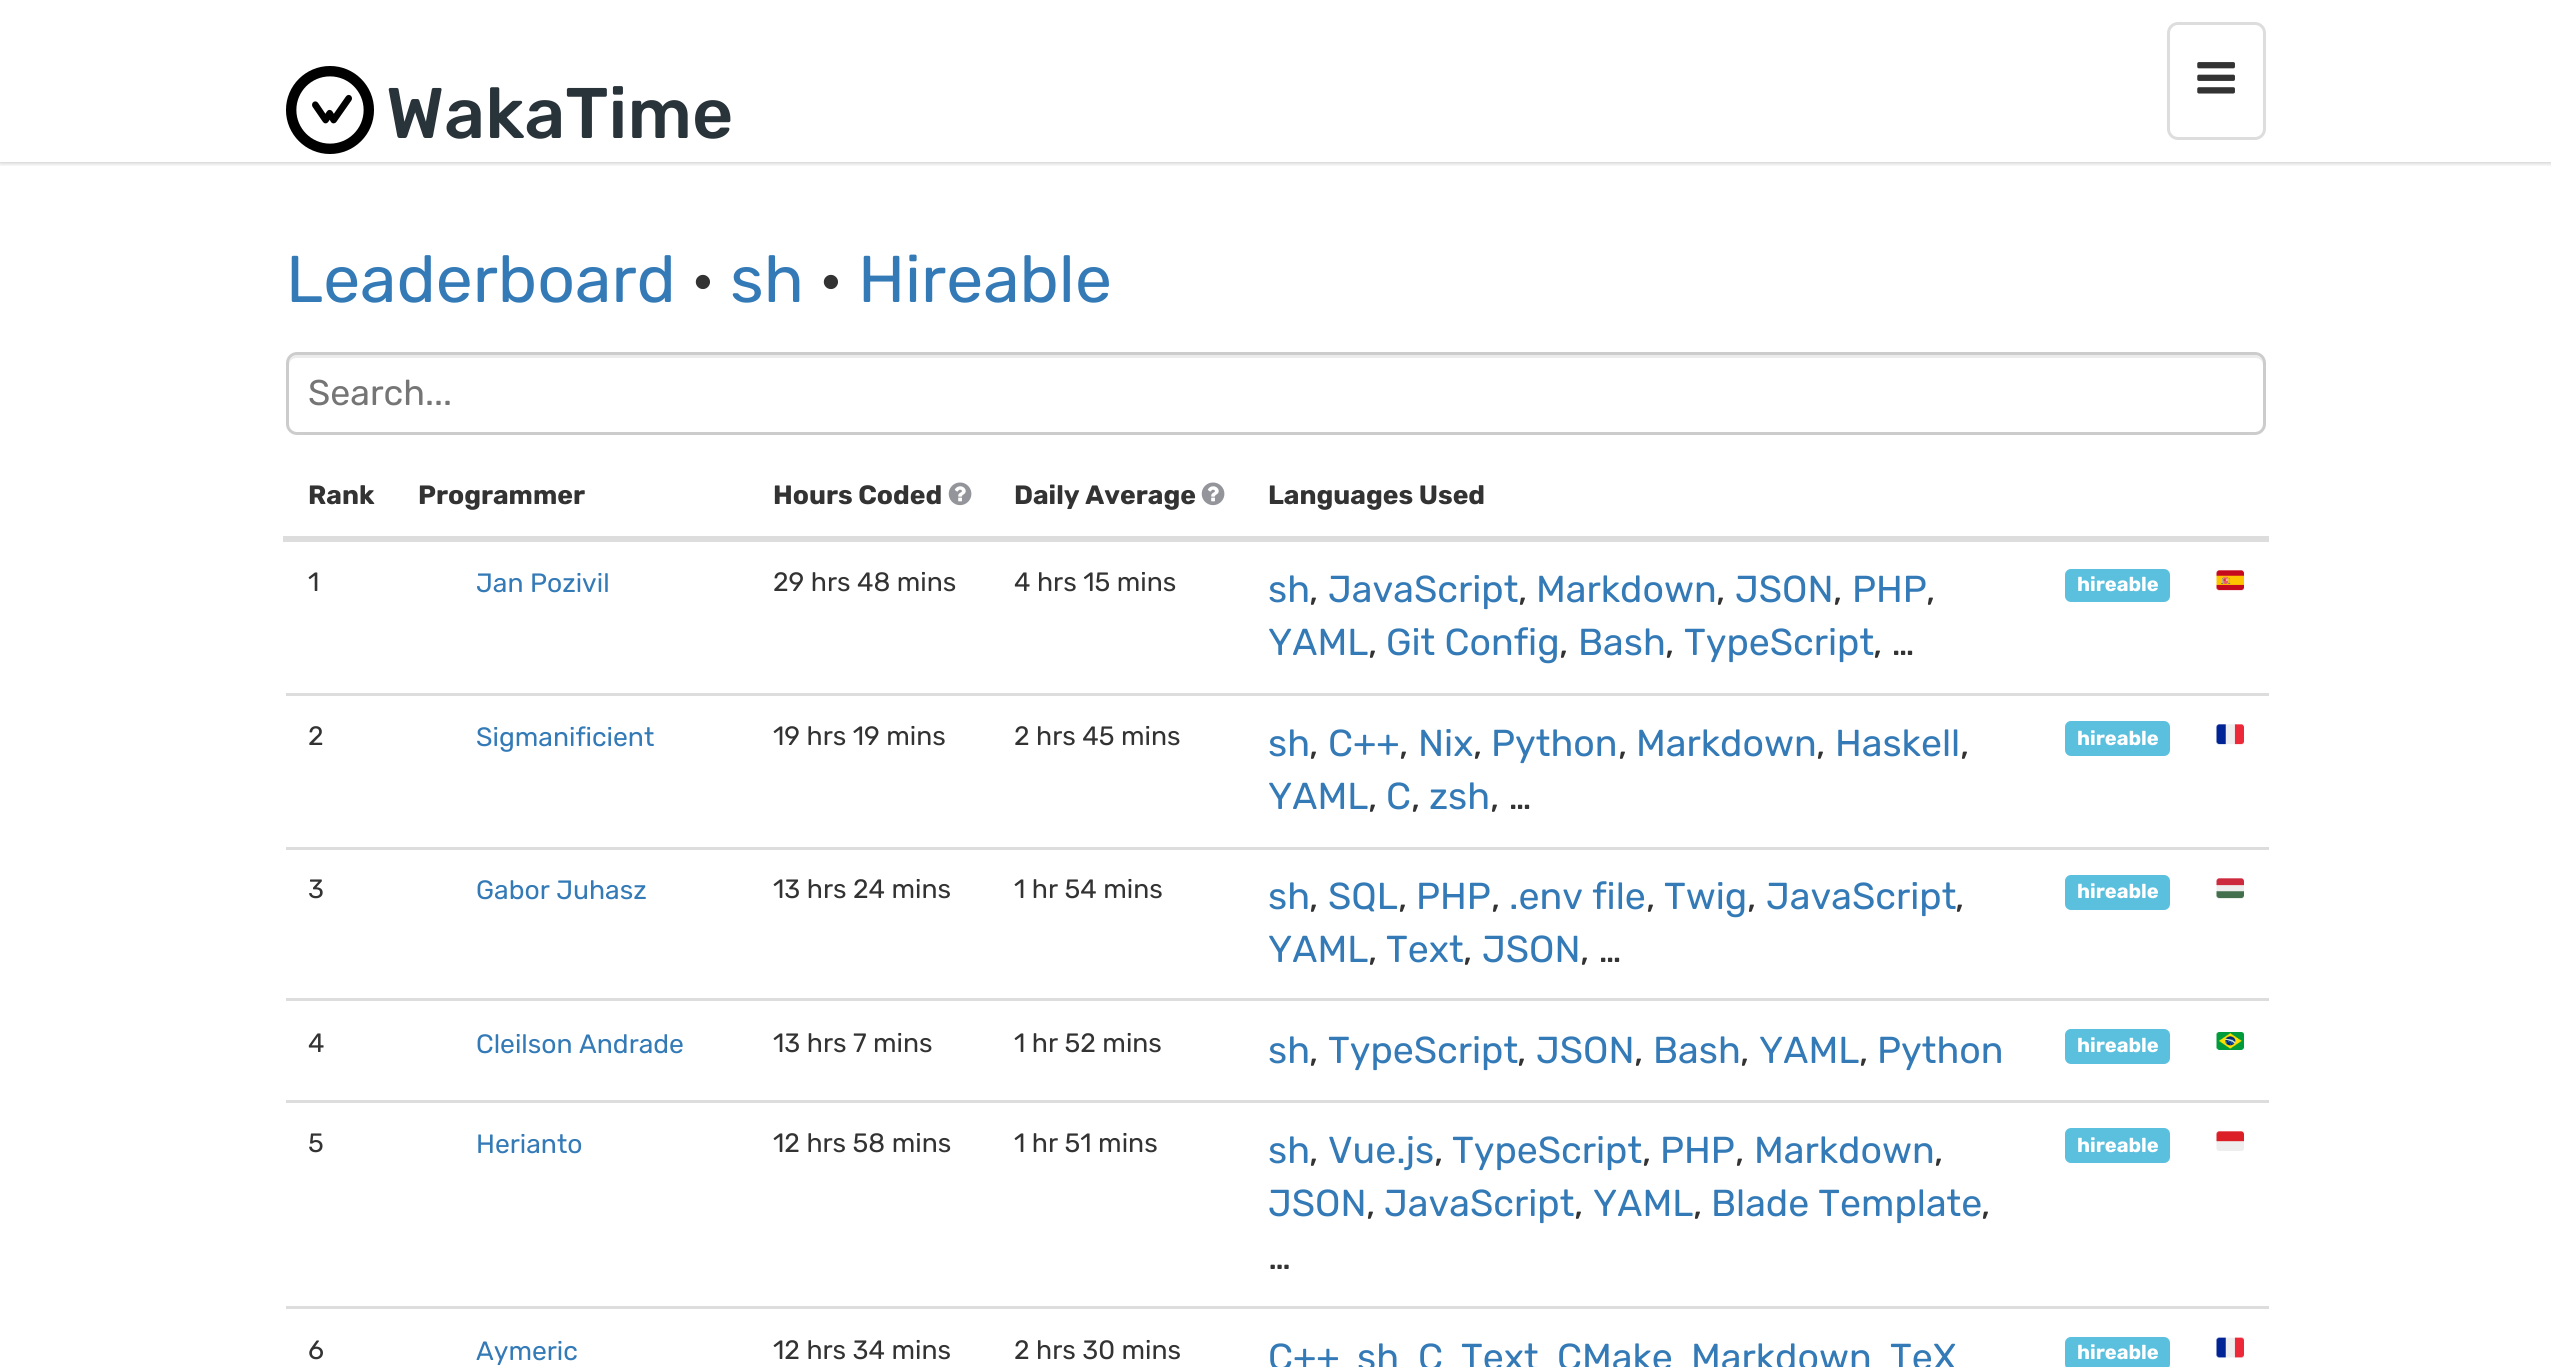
import math
import cairo

surface = cairo.ImageSurface(cairo.Format.RGB24, 2551, 1367)
ctx = cairo.Context(surface)
options = cairo.FontOptions()
options.set_hint_metrics(cairo.HintMetrics.OFF)
options.set_hint_style(cairo.HintStyle.NONE)
ctx.set_font_options(options)
ctx.set_miter_limit(4)


def ink(r, g, b):
    ctx.set_source_rgb(r / 255, g / 255, b / 255)


def write(x, y, s, family, size, color, bold=False, italic=False):
    ctx.select_font_face(family, cairo.FontSlant.ITALIC if italic else cairo.FontSlant.NORMAL, cairo.FontWeight.BOLD if bold else cairo.FontWeight.NORMAL)
    ctx.set_font_size(size)
    ink(*color)
    ctx.move_to(x, y)
    ctx.show_text(s)


def block(x, y, w, h, *color):
    ink(*color)
    ctx.rectangle(x, y, w, h)
    ctx.fill()


def round_path(x, y, w, h, r):
    ctx.new_sub_path()
    for i, (u, v) in enumerate([(x + w - r, y + h - r), (x + r, y + h - r), (x + r, y + r), (x + w - r, y + r)]):
        ctx.arc(u, v, r, i * math.pi / 2, (i + 1) * math.pi / 2)
    ctx.close_path()


def blur_box(x, y, w, h, r, blur, alpha):
    ctx.push_group_with_content(cairo.Content.ALPHA)
    ctx.set_operator(cairo.Operator.SOURCE)
    for i in range(15, -16, -2):
        e = blur * i / 6
        if min(w, h) + 2 * e > 0:
            ctx.set_source_rgba(0, 0, 0, alpha * math.erfc((i - 1) / 8.5) / 2)
            round_path(x - e, y - e, w + 2 * e, h + 2 * e, max(0, min(r + e + blur * .6, min(w, h) / 2 + e)))
            ctx.fill()
    ctx.mask(ctx.pop_group())


def paste(path, x, y, w, h):
    ctx.save()
    ctx.set_source_surface(cairo.ImageSurface.create_from_png(path), x, y)
    ctx.rectangle(x, y, w, h)
    ctx.fill()
    ctx.restore()


s1 = dict(family="Rubik Medium", size=71.5, color=(41, 51, 58))
s2 = dict(family="Rubik", size=66, color=(51, 122, 183))
s3 = dict(family="Rubik", size=66, color=(51, 51, 51))
s4 = dict(family="Rubik", size=35.75, color=(117, 117, 117))
s5 = dict(family="Rubik", size=26.5, color=(51, 51, 51), bold=True)
s6 = dict(family="Rubik", size=26.5, color=(51, 51, 51))
s7 = dict(family="Rubik", size=26.5, color=(51, 122, 183))
s8 = dict(family="Rubik", size=37.5, color=(51, 122, 183))
s9 = dict(family="Rubik", size=37.5, color=(51, 51, 51))
s10 = dict(family="Rubik", size=20, color=(255, 255, 255), bold=True)

ink(255, 255, 255)
ctx.paint()
ctx.save()
ctx.rectangle(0, 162, 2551, 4)
ctx.clip()
ink(0, 0, 0)
blur_box(0, 0, 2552, 162, 0, 3, 0.3)
ctx.restore()
paste("pic1.png", 286, 66, 88, 88)
write(386, 138, "WakaTime", **s1)
round_path(2168.5, 23.5, 96, 115, 9.5)
ink(221, 221, 221)
ctx.set_line_width(3)
ctx.stroke()
paste("pic2.png", 2197, 62, 38, 32)
write(286, 302, "Leaderboard", **s2)
write(692, 302, "·", **s3)
write(730, 302, "sh", **s2)
write(820, 302, "·", **s3)
write(858, 302, "Hireable", **s2)
ink(236, 236, 236)
ctx.new_path()
ctx.move_to(297, 358)
ctx.line_to(2255, 358)
ctx.curve_to(2260, 358, 2263, 361, 2263, 366)
ctx.line_to(2263, 363)
ctx.curve_to(2263, 359, 2259, 355, 2255, 355)
ctx.line_to(297, 355)
ctx.curve_to(293, 355, 289, 359, 289, 363)
ctx.line_to(289, 366)
ctx.curve_to(289, 361, 292, 358, 297, 358)
ctx.close_path()
ctx.fill()
round_path(287.5, 353.5, 1977, 80, 9.5)
ink(204, 204, 204)
ctx.stroke()
write(308, 405, "Search...", **s4)
write(308, 504, "Rank", **s5)
write(418, 504, "Programmer", **s5)
write(773, 504, "Hours Coded", **s5)
paste("pic3.png", 948, 482, 24, 24)
write(1014, 504, "Daily Average", **s5)
paste("pic3.png", 1201, 482, 24, 24)
write(1268, 504, "Languages Used", **s5)
block(283, 536, 1986, 6, 221, 221, 221)
write(308, 591, "1", **s6)
write(476, 592, "Jan Pozivil", **s7)
write(773, 591, "29 hrs 48 mins", **s6)
write(1014, 591, "4 hrs 15 mins", **s6)
write(1268, 602, "sh", **s8)
write(1309, 602, ",", **s9)
write(1328, 602, "JavaScript", **s8)
write(1518, 602, ",", **s9)
write(1536, 602, "Markdown", **s8)
write(1716, 602, ",", **s9)
write(1735, 602, "JSON", **s8)
write(1833, 602, ",", **s9)
write(1852, 602, "PHP", **s8)
write(1926, 602, ",", **s9)
write(1268, 655, "YAML", **s8)
write(1368, 655, ",", **s9)
write(1386, 655, "Git Config", **s8)
write(1559, 655, ",", **s9)
write(1578, 655, "Bash", **s8)
write(1665, 655, ",", **s9)
write(1684, 655, "TypeScript", **s8)
write(1873, 655, ", …", **s9)
ink(91, 192, 222)
round_path(2065, 569, 105, 33, 6)
ctx.fill()
write(2077, 591, "hireable", **s10)
paste("pic4.png", 2216, 570, 28, 21)
block(286, 693, 1983, 3, 221, 221, 221)
paste("pic5.png", 2216, 724, 28, 21)
write(308, 745, "2", **s6)
write(476, 746, "Sigmanificient", **s7)
write(773, 745, "19 hrs 19 mins", **s6)
write(1014, 745, "2 hrs 45 mins", **s6)
write(1268, 756, "sh", **s8)
write(1309, 756, ",", **s9)
write(1328, 756, "C++", **s8)
write(1399, 756, ",", **s9)
write(1418, 756, "Nix", **s8)
write(1473, 756, ",", **s9)
write(1491, 756, "Python", **s8)
write(1618, 756, ",", **s9)
write(1636, 756, "Markdown", **s8)
write(1816, 756, ",", **s9)
write(1835, 756, "Haskell", **s8)
write(1960, 756, ",", **s9)
write(1268, 809, "YAML", **s8)
write(1368, 809, ",", **s9)
write(1386, 809, "C", **s8)
write(1411, 809, ",", **s9)
write(1429, 809, "zsh", **s8)
write(1490, 809, ", …", **s9)
ink(91, 192, 222)
round_path(2065, 721, 105, 35, 6)
ctx.fill()
write(2077, 745, "hireable", **s10)
block(286, 847, 1983, 3, 221, 221, 221)
paste("pic6.png", 2216, 878, 28, 21)
write(308, 898, "3", **s6)
write(476, 899, "Gabor Juhasz", **s7)
write(773, 898, "13 hrs 24 mins", **s6)
write(1014, 898, "1 hr 54 mins", **s6)
write(1268, 909, "sh", **s8)
write(1309, 909, ",", **s9)
write(1328, 909, "SQL", **s8)
write(1398, 909, ",", **s9)
write(1416, 909, "PHP", **s8)
write(1491, 909, ",", **s9)
write(1509, 909, ".env file", **s8)
write(1646, 909, ",", **s9)
write(1664, 909, "Twig", **s8)
write(1747, 909, ",", **s9)
write(1766, 909, "JavaScript", **s8)
write(1955, 909, ",", **s9)
write(1268, 962, "YAML", **s8)
write(1368, 962, ",", **s9)
write(1386, 962, "Text", **s8)
write(1463, 962, ",", **s9)
write(1482, 962, "JSON", **s8)
write(1580, 962, ", …", **s9)
ink(91, 192, 222)
round_path(2065, 875, 105, 35, 6)
ctx.fill()
write(2077, 898, "hireable", **s10)
block(286, 998, 1983, 3, 221, 221, 221)
paste("pic7.png", 2216, 1032, 28, 18)
write(308, 1052, "4", **s6)
write(476, 1053, "Cleilson Andrade", **s7)
write(773, 1052, "13 hrs 7 mins", **s6)
write(1014, 1052, "1 hr 52 mins", **s6)
write(1268, 1063, "sh", **s8)
write(1309, 1063, ",", **s9)
write(1328, 1063, "TypeScript", **s8)
write(1517, 1063, ",", **s9)
write(1536, 1063, "JSON", **s8)
write(1634, 1063, ",", **s9)
write(1653, 1063, "Bash", **s8)
write(1740, 1063, ",", **s9)
write(1759, 1063, "YAML", **s8)
write(1859, 1063, ",", **s9)
write(1877, 1063, "Python", **s8)
ink(91, 192, 222)
round_path(2065, 1029, 105, 35, 6)
ctx.fill()
write(2077, 1052, "hireable", **s10)
block(286, 1100, 1983, 3, 221, 221, 221)
paste("pic8.png", 2216, 1131, 28, 20)
write(308, 1152, "5", **s6)
write(476, 1153, "Herianto", **s7)
write(773, 1152, "12 hrs 58 mins", **s6)
write(1014, 1152, "1 hr 51 mins", **s6)
write(1268, 1163, "sh", **s8)
write(1309, 1163, ",", **s9)
write(1328, 1163, "Vue.js", **s8)
write(1434, 1163, ",", **s9)
write(1452, 1163, "TypeScript", **s8)
write(1642, 1163, ",", **s9)
write(1660, 1163, "PHP", **s8)
write(1735, 1163, ",", **s9)
write(1754, 1163, "Markdown", **s8)
write(1934, 1163, ",", **s9)
write(1268, 1216, "JSON", **s8)
write(1366, 1216, ",", **s9)
write(1384, 1216, "JavaScript", **s8)
write(1574, 1216, ",", **s9)
write(1593, 1216, "YAML", **s8)
write(1693, 1216, ",", **s9)
write(1711, 1216, "Blade Template", **s8)
write(1981, 1216, ",", **s9)
write(1268, 1269, "…", **s9)
ink(91, 192, 222)
round_path(2065, 1128, 105, 35, 6)
ctx.fill()
write(2077, 1152, "hireable", **s10)
block(286, 1306, 1983, 3, 221, 221, 221)
paste("pic9.png", 2216, 1337, 28, 21)
write(308, 1359, "6", **s6)
write(476, 1360, "Aymeric", **s7)
write(773, 1359, "12 hrs 34 mins", **s6)
write(1014, 1359, "2 hrs 30 mins", **s6)
write(1268, 1370, "C++", **s8)
write(1357, 1370, "sh", **s8)
write(1418, 1370, "C", **s8)
write(1461, 1370, "Text", **s8)
write(1557, 1370, "CMake", **s8)
write(1691, 1370, "Markdown", **s8)
write(1890, 1370, "TeX", **s8)
ink(91, 192, 222)
round_path(2065, 1337, 105, 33, 6)
ctx.fill()
write(2077, 1359, "hireable", **s10)
surface.write_to_png("screenshot.png")
